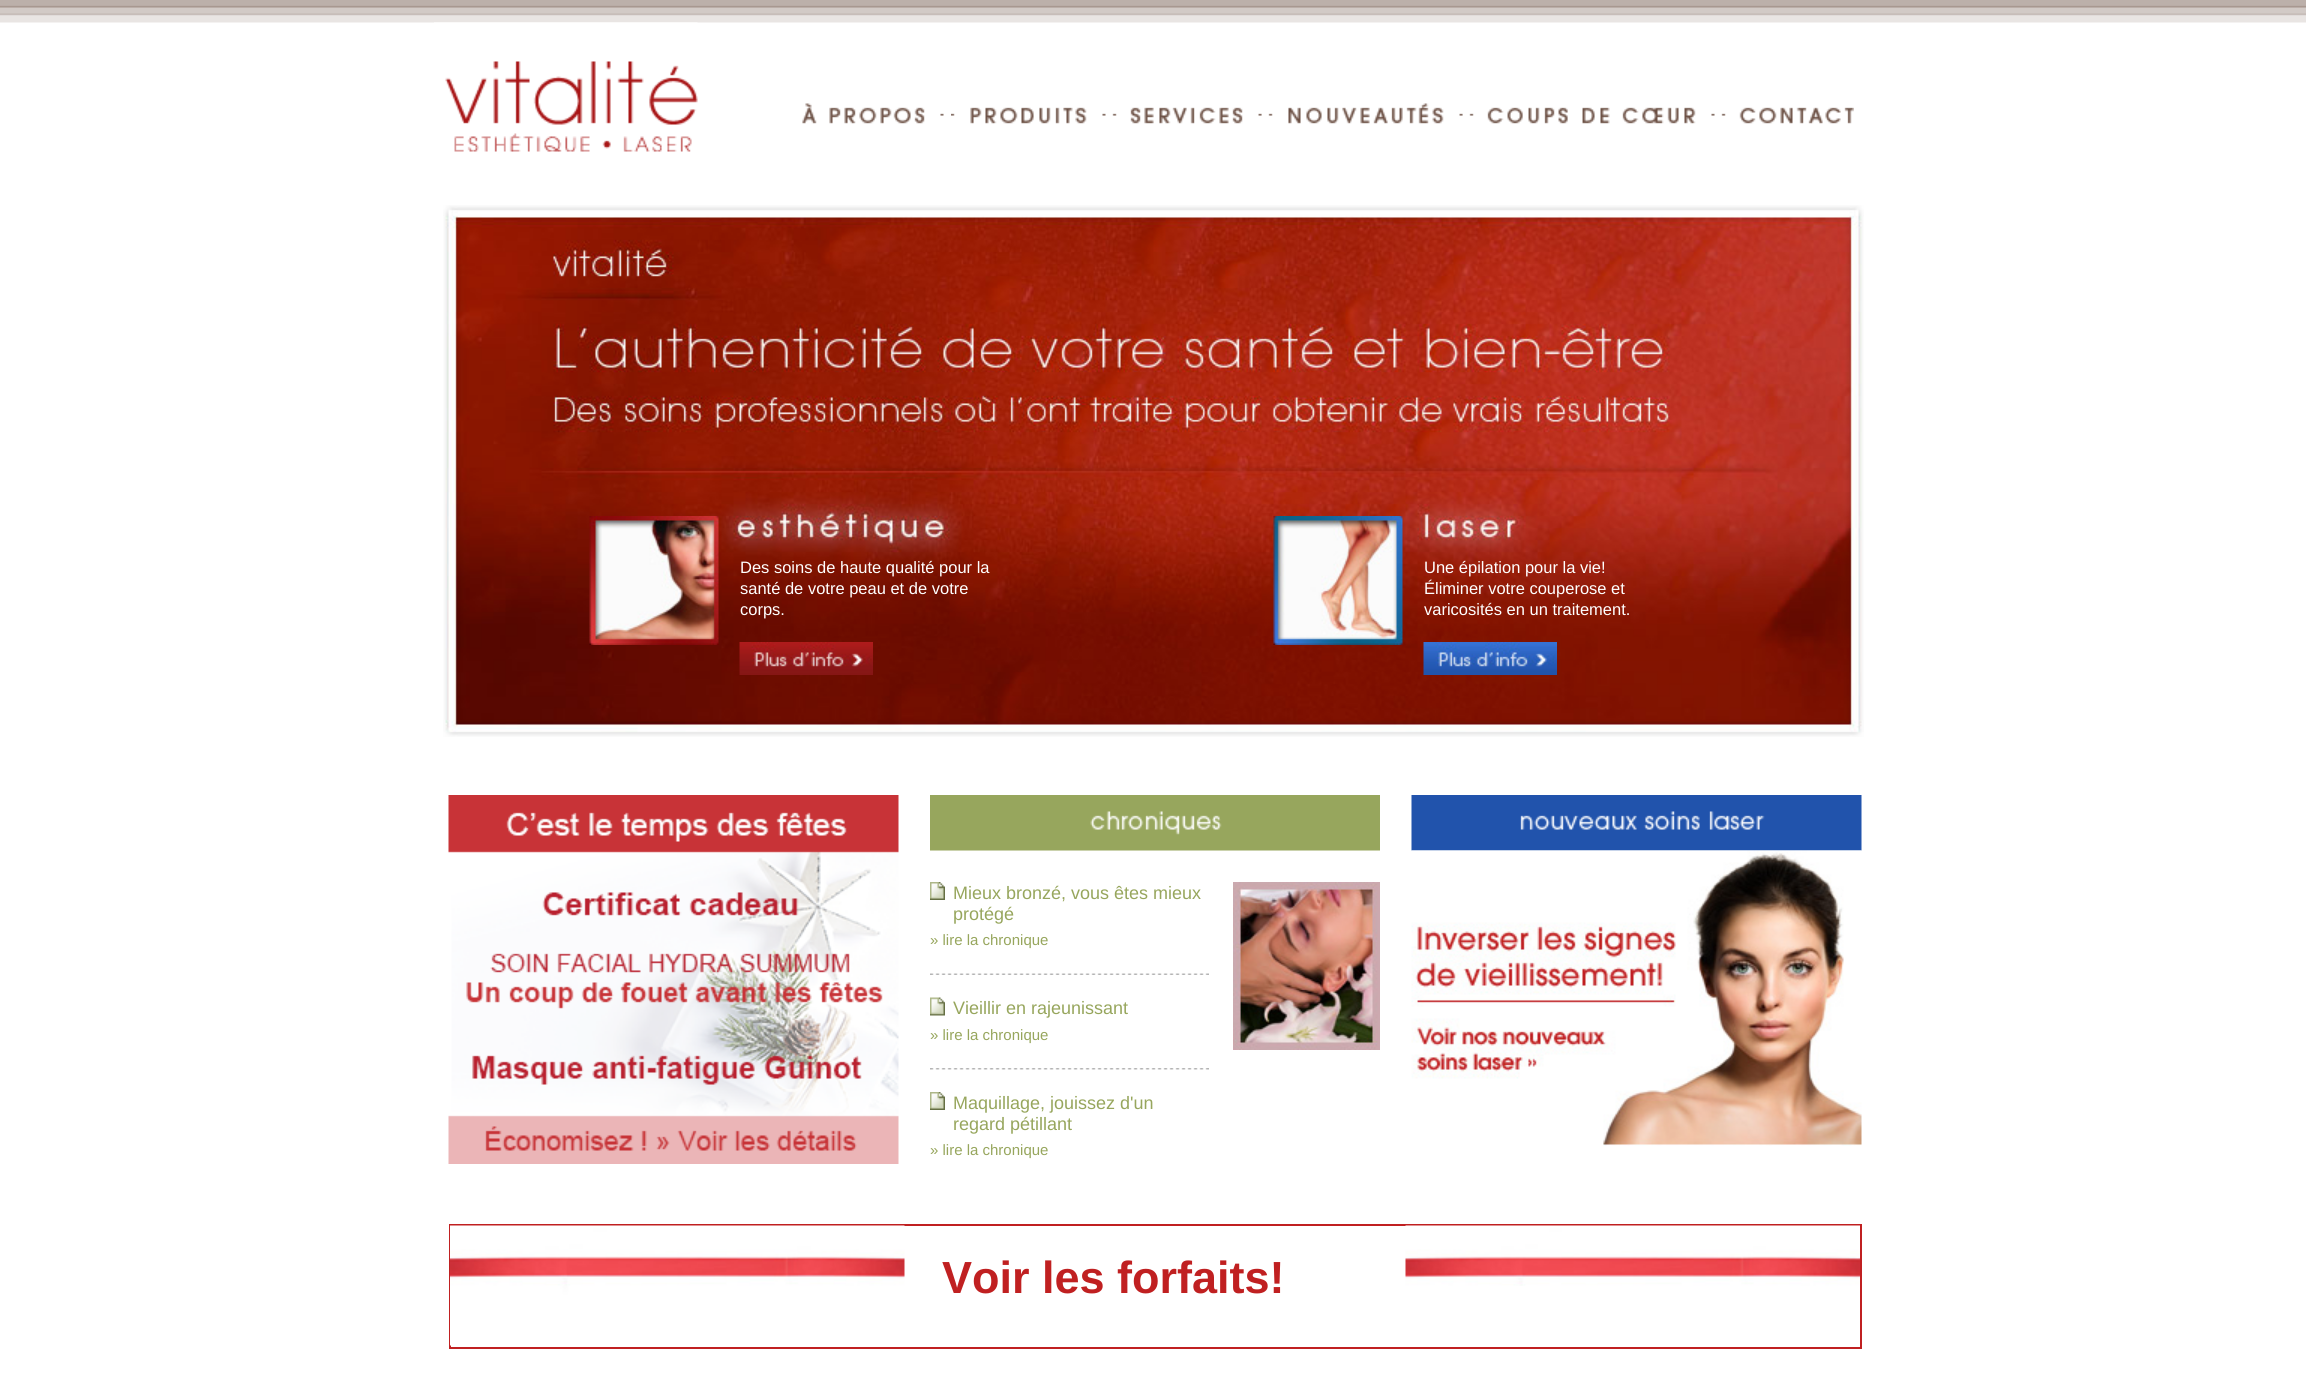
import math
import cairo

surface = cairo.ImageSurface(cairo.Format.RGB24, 2306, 1383)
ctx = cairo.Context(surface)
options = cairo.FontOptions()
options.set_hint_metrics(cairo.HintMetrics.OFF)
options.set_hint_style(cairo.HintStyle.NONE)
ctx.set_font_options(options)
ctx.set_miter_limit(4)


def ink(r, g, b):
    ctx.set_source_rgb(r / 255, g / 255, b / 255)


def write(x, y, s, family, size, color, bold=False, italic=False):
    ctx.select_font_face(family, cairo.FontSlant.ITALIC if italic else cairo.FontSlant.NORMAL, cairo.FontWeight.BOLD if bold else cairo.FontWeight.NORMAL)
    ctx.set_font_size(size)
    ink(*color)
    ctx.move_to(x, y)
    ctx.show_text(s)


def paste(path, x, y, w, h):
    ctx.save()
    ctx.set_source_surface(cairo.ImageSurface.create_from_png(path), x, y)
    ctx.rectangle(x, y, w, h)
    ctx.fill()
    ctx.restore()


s1 = dict(family="Liberation Sans", size=16.5, color=(255, 255, 255))
s2 = dict(family="Liberation Sans", size=18, color=(151, 166, 93))
s3 = dict(family="Liberation Sans", size=15, color=(151, 166, 93))
s4 = dict(family="Liberation Sans", size=45, color=(192, 32, 33), bold=True)

ink(255, 255, 255)
ctx.paint()
paste("pic1.png", 0, 0, 2306, 23)
paste("pic2.png", 434, 22, 264, 130)
paste("pic3.png", 802, 103, 142, 21)
paste("pic4.png", 951, 107, 155, 17)
paste("pic5.png", 1112, 107, 150, 17)
paste("pic6.png", 1268, 103, 195, 21)
paste("pic7.png", 1469, 107, 246, 17)
paste("pic8.png", 1721, 107, 133, 17)
paste("pic9.png", 443, 205, 1421, 532)
paste("pic10.png", 589, 516, 130, 129)
write(740, 573, "Des soins de haute qualité pour la", **s1)
write(740, 594, "santé de votre peau et de votre", **s1)
write(740, 615, "corps.", **s1)
paste("pic11.png", 739, 642, 134, 33)
paste("pic12.png", 1273, 516, 130, 129)
write(1424, 573, "Une épilation pour la vie!", **s1)
write(1424, 594, "Éliminer votre couperose et", **s1)
write(1424, 615, "varicosités en un traitement.", **s1)
paste("pic13.png", 1423, 642, 134, 33)
paste("pic14.png", 448, 795, 451, 369)
paste("pic15.png", 930, 795, 450, 56)
paste("pic16.png", 930, 882, 15, 18)
write(953, 899, "Mieux bronzé, vous êtes mieux", **s2)
write(953, 920, "protégé", **s2)
write(930, 945, "» lire la chronique", **s3)
paste("pic17.png", 930, 973, 279, 2)
paste("pic18.png", 930, 997, 15, 19)
write(953, 1014, "Vieillir en rajeunissant", **s2)
write(930, 1040, "» lire la chronique", **s3)
paste("pic19.png", 930, 1068, 279, 2)
paste("pic16.png", 930, 1092, 15, 18)
write(953, 1109, "Maquillage, jouissez d'un", **s2)
write(953, 1130, "regard pétillant", **s2)
write(930, 1155, "» lire la chronique", **s3)
paste("pic20.png", 1233, 882, 147, 168)
paste("pic21.png", 1411, 795, 451, 56)
paste("pic22.png", 1411, 850, 451, 296)
ctx.rectangle(450, 1225, 1411, 123)
ink(192, 32, 33)
ctx.stroke()
paste("pic23.png", 450, 1225, 455, 121)
write(942, 1293, "Voir les forfaits!", **s4)
paste("pic24.png", 1405, 1225, 455, 61)
surface.write_to_png("screenshot.png")
